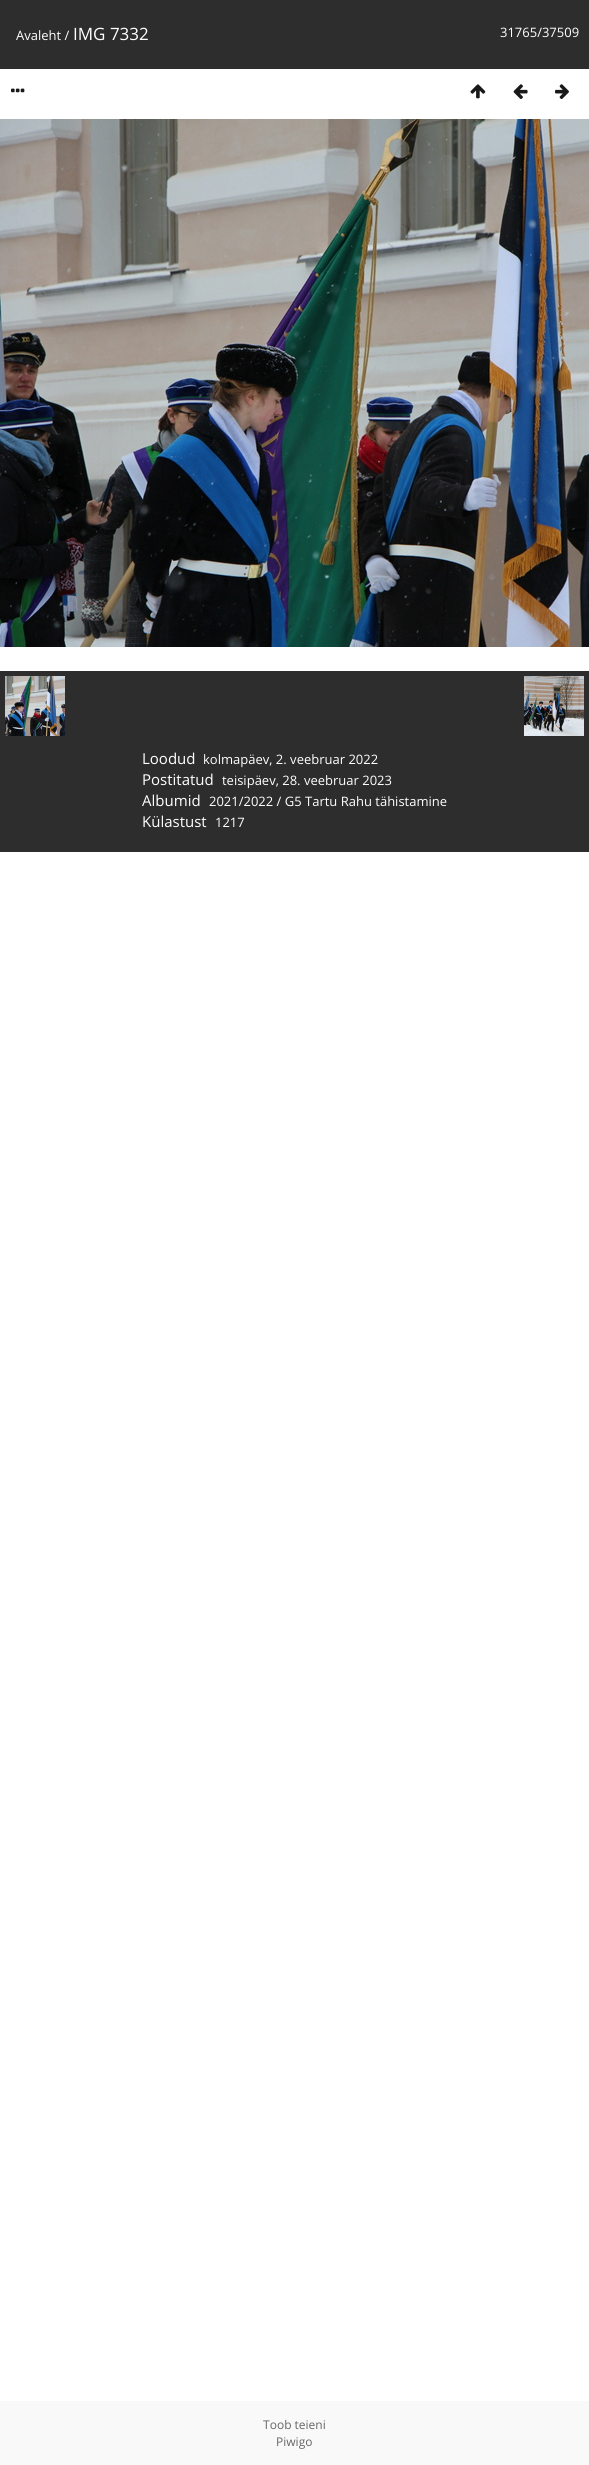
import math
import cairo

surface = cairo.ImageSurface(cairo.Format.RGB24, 589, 2465)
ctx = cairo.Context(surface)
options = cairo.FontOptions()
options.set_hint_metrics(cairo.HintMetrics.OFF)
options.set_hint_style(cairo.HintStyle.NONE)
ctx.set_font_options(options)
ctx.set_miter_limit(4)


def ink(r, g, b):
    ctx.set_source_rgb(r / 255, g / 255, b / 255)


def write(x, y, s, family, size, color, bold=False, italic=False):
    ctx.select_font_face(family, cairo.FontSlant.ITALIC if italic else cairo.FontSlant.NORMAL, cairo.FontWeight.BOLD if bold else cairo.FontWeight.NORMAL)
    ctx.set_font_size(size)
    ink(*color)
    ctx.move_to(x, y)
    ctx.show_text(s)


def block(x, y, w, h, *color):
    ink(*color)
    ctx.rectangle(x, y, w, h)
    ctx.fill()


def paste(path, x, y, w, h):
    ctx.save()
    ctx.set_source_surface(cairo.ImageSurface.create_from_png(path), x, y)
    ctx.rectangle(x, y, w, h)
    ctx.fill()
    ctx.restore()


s1 = dict(family="Open Sans", size=13, color=(255, 255, 255))
s2 = dict(family="Open Sans", size=17, color=(255, 255, 255))
s3 = dict(family="Open Sans", size=15, color=(255, 255, 255))
s4 = dict(family="Open Sans", size=12, color=(102, 102, 102))

ink(255, 255, 255)
ctx.paint()
block(0, 0, 589, 69, 45, 45, 45)
write(16, 40, "Avaleht /", **s1)
write(73, 40, "IMG 7332", **s2)
write(500, 37, "31765/37509", **s1)
paste("pic1.png", 11, 88, 14, 5)
paste("pic2.png", 470, 84, 16, 15)
paste("pic3.png", 513, 84, 15, 15)
paste("pic4.png", 555, 84, 14, 15)
paste("pic5.png", 0, 119, 589, 528)
block(0, 671, 589, 181, 45, 45, 45)
paste("pic6.png", 5, 676, 60, 60)
paste("pic7.png", 524, 676, 60, 60)
write(142, 764, "Loodud", **s3)
write(203, 764, "kolmapäev, 2. veebruar 2022", **s1)
write(142, 785, "Postitatud", **s3)
write(222, 785, "teisipäev, 28. veebruar 2023", **s1)
write(142, 806, "Albumid", **s3)
write(209, 806, "2021/2022 / G5 Tartu Rahu tähistamine", **s1)
write(142, 827, "Külastust", **s3)
write(215, 827, "1217", **s1)
block(0, 2401, 589, 64, 249, 249, 249)
write(263, 2429, "Toob teieni", **s4)
write(276, 2446, "Piwigo", **s4)
surface.write_to_png("screenshot.png")
